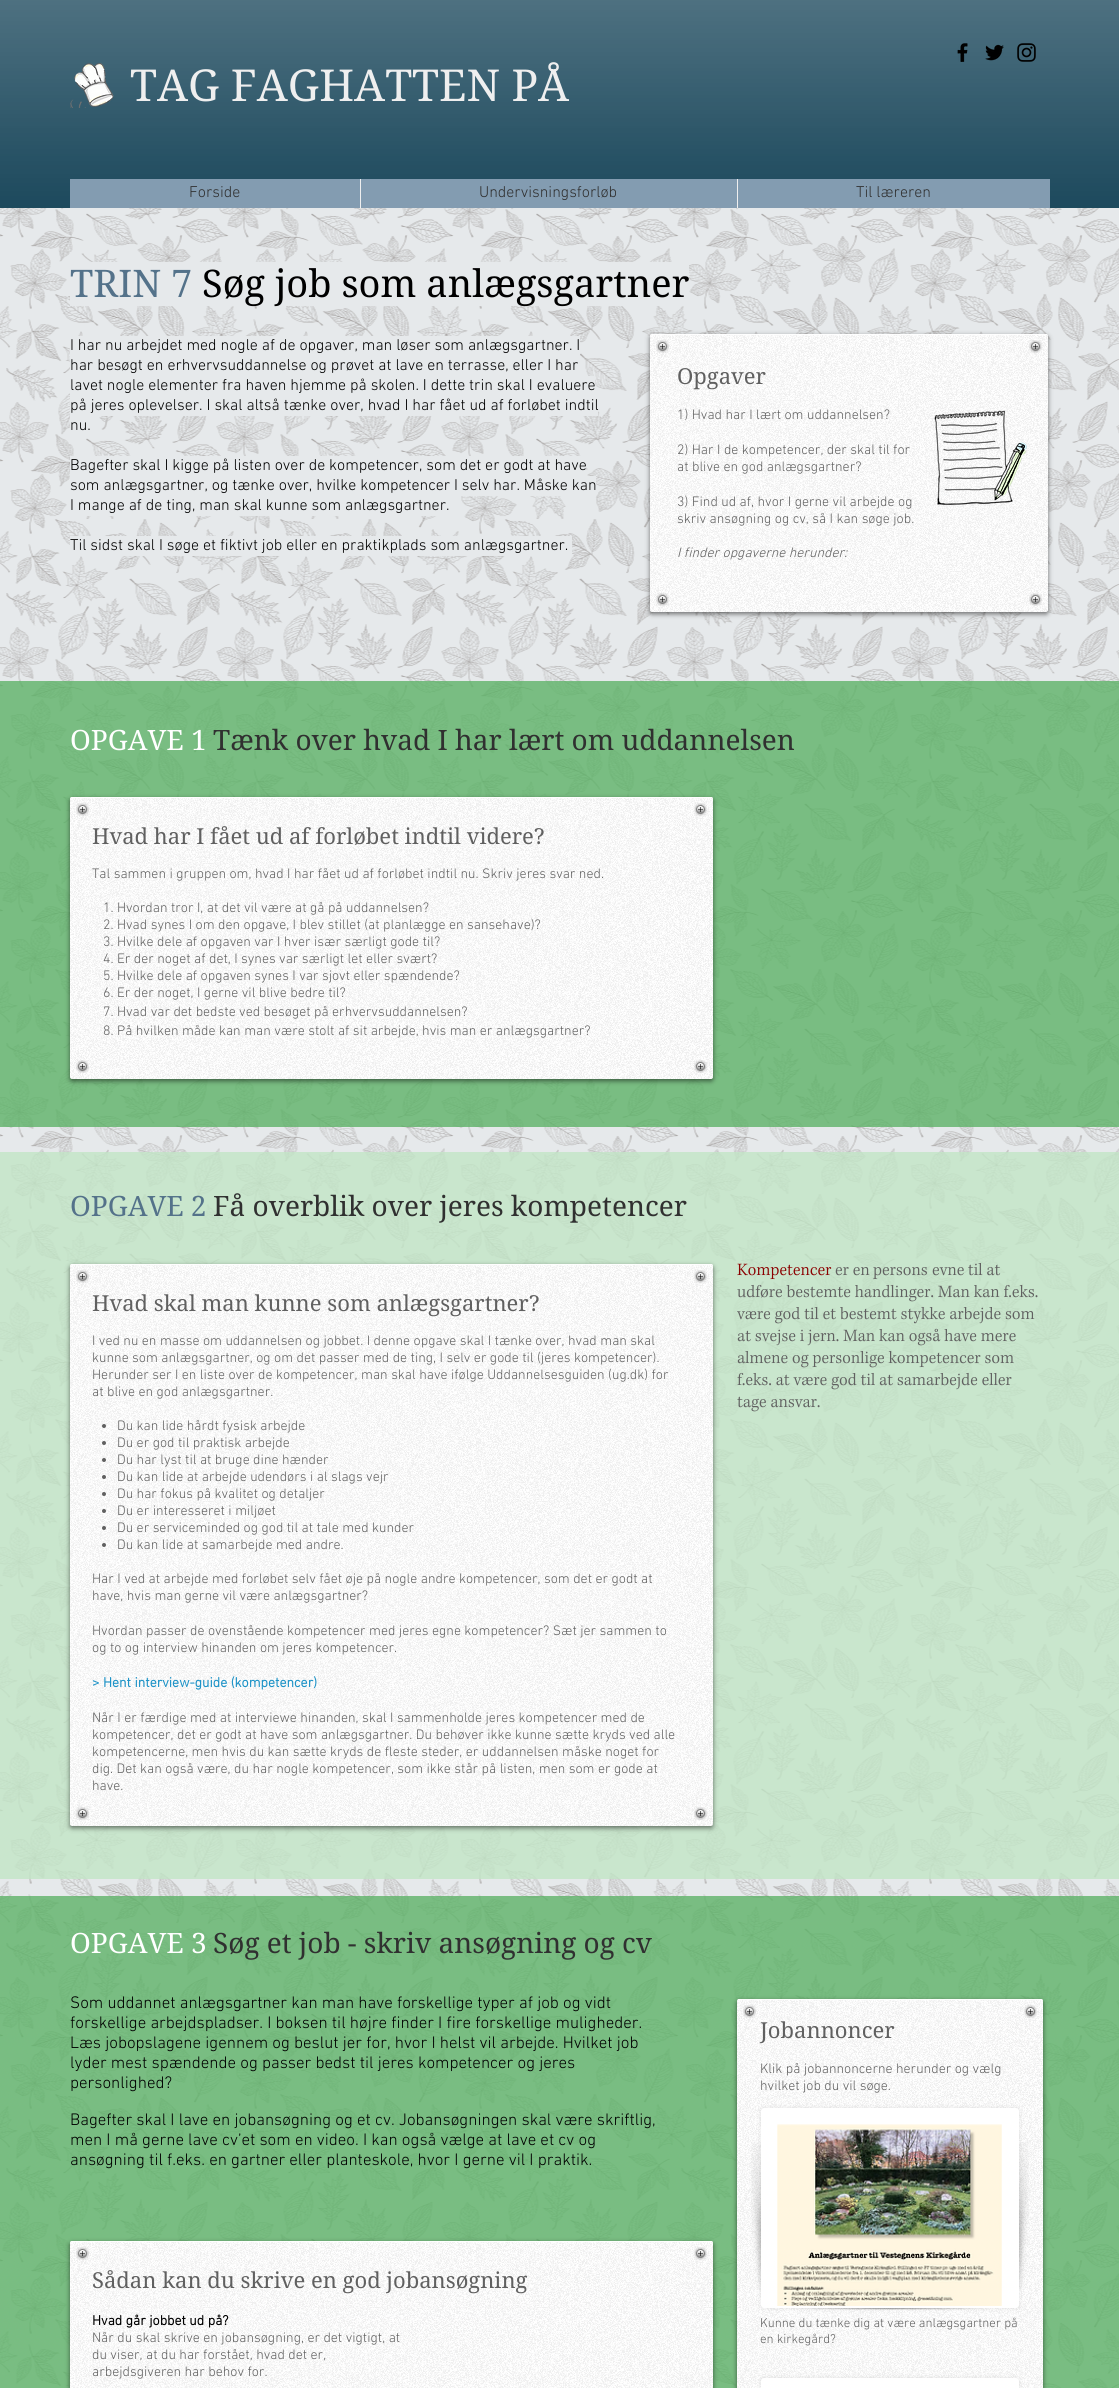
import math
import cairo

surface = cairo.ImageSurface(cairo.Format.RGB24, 1119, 2388)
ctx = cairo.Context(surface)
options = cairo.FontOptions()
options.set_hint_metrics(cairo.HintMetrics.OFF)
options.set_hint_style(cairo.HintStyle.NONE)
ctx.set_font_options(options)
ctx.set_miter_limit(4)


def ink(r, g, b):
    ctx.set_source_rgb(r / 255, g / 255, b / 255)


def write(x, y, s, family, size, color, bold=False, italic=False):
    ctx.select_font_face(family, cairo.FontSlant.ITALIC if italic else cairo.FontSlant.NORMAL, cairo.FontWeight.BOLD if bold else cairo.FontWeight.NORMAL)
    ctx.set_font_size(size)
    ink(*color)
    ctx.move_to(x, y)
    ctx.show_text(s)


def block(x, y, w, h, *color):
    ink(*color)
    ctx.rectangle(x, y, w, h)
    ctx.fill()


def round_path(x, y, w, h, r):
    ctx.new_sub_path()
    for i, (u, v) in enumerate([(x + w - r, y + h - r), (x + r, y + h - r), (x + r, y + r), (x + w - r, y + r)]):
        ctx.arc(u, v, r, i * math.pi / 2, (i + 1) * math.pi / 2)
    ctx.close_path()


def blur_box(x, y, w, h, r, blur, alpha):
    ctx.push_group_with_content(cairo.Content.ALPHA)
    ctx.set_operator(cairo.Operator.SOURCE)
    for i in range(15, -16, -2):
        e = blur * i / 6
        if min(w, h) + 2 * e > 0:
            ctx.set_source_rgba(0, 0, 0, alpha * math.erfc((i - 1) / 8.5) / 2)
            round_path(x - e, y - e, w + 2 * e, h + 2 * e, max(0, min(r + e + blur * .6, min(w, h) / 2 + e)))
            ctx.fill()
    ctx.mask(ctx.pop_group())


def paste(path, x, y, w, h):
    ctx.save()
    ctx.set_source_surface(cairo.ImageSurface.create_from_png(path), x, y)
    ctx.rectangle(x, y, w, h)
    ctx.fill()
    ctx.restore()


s1 = dict(family="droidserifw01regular", size=44, color=(239, 239, 239))
s2 = dict(family="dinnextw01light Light", size=16, color=(48, 48, 48))
s3 = dict(family="droidserifw01regular", size=38, color=(84, 114, 138))
s4 = dict(family="droidserifw01regular", size=38, color=(0, 0, 0))
s5 = dict(family="dinnextw01light Light", size=16, color=(0, 0, 0))
s6 = dict(family="droidserifw01regular", size=22, color=(96, 96, 96))
s7 = dict(family="dinnextw01light Light", size=14, color=(96, 96, 96))
s8 = dict(family="dinnextw01light Light", size=14, color=(96, 96, 96), italic=True)
s9 = dict(family="droidserifw01regular", size=28, color=(255, 255, 255))
s10 = dict(family="droidserifw01regular", size=28, color=(48, 48, 48))
s11 = dict(family="droidserifw01regular", size=28, color=(84, 114, 138))
s12 = dict(family="dinnextw01light", size=14, color=(30, 147, 199), bold=True)
s13 = dict(family="dinnextw01light Light", size=17, color=(0, 0, 0))
s14 = dict(family="dinnextw01light Light", size=13, color=(96, 96, 96))
s15 = dict(family="dinnextw01light", size=14, color=(0, 0, 0), bold=True)

ink(230, 233, 235)
ctx.paint()
block(0, 0, 1119, 208, 16, 63, 84)
paste("pic1.png", 0, 0, 1119, 208)
paste("pic2.png", 957, 43, 11, 19)
paste("pic3.png", 985, 44, 19, 17)
paste("pic4.png", 1017, 43, 19, 19)
paste("pic5.png", 70, 62, 44, 46)
write(130, 101, "TAG FAGHATTEN PÅ", **s1)
block(70, 179, 980, 29, 131, 156, 177)
write(189, 197, "Forside", **s2)
block(360, 179, 1, 29, 239, 239, 239)
write(479, 197, "Undervisningsforløb", **s2)
block(737, 179, 1, 29, 239, 239, 239)
write(856, 197, "Til læreren", **s2)
paste("pic37.png", 0, 208, 1119, 2180)
block(70, 262, 118, 44, 230, 233, 235)
write(70, 297, "TRIN 7", **s3)
block(193, 262, 496, 44, 230, 233, 235)
write(202, 297, "Søg job som anlægsgartner", **s4)
block(70, 336, 510, 20, 230, 233, 235)
write(70, 350, "I har nu arbejdet med nogle af de opgaver, man løser som anlægsgartner. I", **s5)
block(70, 356, 497, 20, 230, 233, 235)
write(70, 370, "har besøgt en erhvervsuddannelse og prøvet at lave en terrasse, eller I har", **s5)
block(70, 376, 525, 20, 230, 233, 235)
write(70, 390, "lavet nogle elementer fra haven hjemme på skolen. I dette trin skal I evaluere", **s5)
block(70, 396, 528, 20, 230, 233, 235)
write(70, 410, "på jeres oplevelser. I skal altså tænke over, hvad I har fået ud af forløbet indtil", **s5)
block(70, 416, 16, 12, 230, 233, 235)
write(70, 430, "nu.", **s5)
block(70, 456, 516, 20, 230, 233, 235)
write(70, 470, "Bagefter skal I kigge på listen over de kompetencer, som det er godt at have", **s5)
block(70, 476, 526, 20, 230, 233, 235)
write(70, 490, "som anlægsgartner, og tænke over, hvilke kompetencer I selv har. Måske kan", **s5)
block(80, 496, 369, 20, 230, 233, 235)
write(70, 510, "I mange af de ting, man skal kunne som anlægsgartner.", **s5)
block(70, 536, 502, 20, 230, 233, 235)
write(70, 550, "Til sidst skal I søge et fiktivt job eller en praktikplads som anlægsgartner.", **s5)
ink(0, 0, 0)
blur_box(650, 336, 398, 278, 2, 2.5, 0.53)
ink(255, 255, 255)
round_path(650, 334, 398, 278, 2)
ctx.fill()
paste("pic6.png", 650, 334, 398, 278)
ctx.set_source_rgba(1, 1, 1, 0.92)
ctx.new_path()
ctx.move_to(652, 335)
ctx.line_to(1046, 335)
ctx.curve_to(1047, 335, 1048, 336, 1048, 337)
ctx.curve_to(1048, 336, 1048, 334, 1046, 334)
ctx.line_to(652, 334)
ctx.line_to(650, 335)
ctx.line_to(650, 337)
ctx.curve_to(650, 336, 651, 335, 652, 335)
ctx.close_path()
ctx.fill()
paste("pic7.png", 656, 340, 13, 13)
paste("pic8.png", 1029, 340, 13, 13)
write(677, 384, "Opgaver", **s6)
write(677, 419, "1) Hvad har I lært om uddannelsen?", **s7)
write(677, 454, "2) Har I de kompetencer, der skal til for", **s7)
write(677, 471, "at blive en god anlægsgartner?", **s7)
write(677, 506, "3) Find ud af, hvor I gerne vil arbejde og", **s7)
write(677, 523, "skriv ansøgning og cv, så I kan søge job.", **s7)
write(677, 557, "I finder opgaverne herunder:", **s8)
paste("pic9.png", 934, 410, 93, 97)
paste("pic10.png", 656, 593, 13, 13)
paste("pic11.png", 1029, 593, 13, 13)
ctx.set_source_rgba(0.365, 0.698, 0.404, 0.79)
ctx.rectangle(0, 681, 1119, 446)
ctx.fill()
write(70, 750, "OPGAVE 1", **s9)
write(213, 750, "Tænk over hvad I har lært om uddannelsen", **s10)
ink(0, 0, 0)
blur_box(70, 799, 643, 282, 2, 2.5, 0.53)
ink(255, 255, 255)
round_path(70, 797, 643, 282, 2)
ctx.fill()
paste("pic12.png", 70, 797, 643, 282)
ctx.set_source_rgba(1, 1, 1, 0.92)
ctx.new_path()
ctx.move_to(72, 798)
ctx.line_to(711, 798)
ctx.curve_to(712, 798, 713, 799, 713, 800)
ctx.curve_to(713, 799, 713, 797, 711, 797)
ctx.line_to(72, 797)
ctx.curve_to(70, 797, 70, 799, 70, 800)
ctx.curve_to(70, 799, 71, 798, 72, 798)
ctx.close_path()
ctx.fill()
paste("pic7.png", 76, 803, 13, 13)
paste("pic13.png", 694, 803, 13, 13)
write(92, 844, "Hvad har I fået ud af forløbet indtil videre?", **s6)
write(92, 878, "Tal sammen i gruppen om, hvad I har fået ud af forløbet indtil nu. Skriv jeres svar ned.", **s7)
write(103, 912, "1. Hvordan tror I, at det vil være at gå på uddannelsen?", **s7)
write(103, 929, "2. Hvad synes I om den opgave, I blev stillet (at planlægge en sansehave)?", **s7)
write(103, 946, "3. Hvilke dele af opgaven var I hver især særligt gode til?", **s7)
write(103, 963, "4. Er der noget af det, I synes var særligt let eller svært?", **s7)
write(103, 980, "5. Hvilke dele af opgaven synes I var sjovt eller spændende?", **s7)
write(103, 997, "6. Er der noget, I gerne vil blive bedre til?", **s7)
write(103, 1016, "7. Hvad var det bedste ved besøget på erhvervsuddannelsen?", **s7)
write(103, 1035, "8. På hvilken måde kan man være stolt af sit arbejde, hvis man er anlægsgartner?", **s7)
paste("pic14.png", 76, 1060, 13, 13)
paste("pic15.png", 694, 1060, 13, 13)
ctx.set_source_rgba(0.757, 0.898, 0.773, 0.8)
ctx.rectangle(0, 1152, 1119, 727)
ctx.fill()
write(70, 1216, "OPGAVE 2", **s11)
write(213, 1216, "Få overblik over jeres kompetencer", **s10)
ink(0, 0, 0)
blur_box(70, 1266, 643, 562, 2, 2.5, 0.53)
ink(255, 255, 255)
round_path(70, 1264, 643, 562, 2)
ctx.fill()
paste("pic16.png", 70, 1264, 643, 562)
ctx.set_source_rgba(1, 1, 1, 0.92)
ctx.new_path()
ctx.move_to(72, 1265)
ctx.line_to(711, 1265)
ctx.curve_to(712, 1265, 713, 1266, 713, 1267)
ctx.curve_to(713, 1266, 713, 1264, 711, 1264)
ctx.line_to(72, 1264)
ctx.curve_to(70, 1264, 70, 1266, 70, 1267)
ctx.curve_to(70, 1266, 71, 1265, 72, 1265)
ctx.close_path()
ctx.fill()
paste("pic7.png", 76, 1270, 13, 13)
paste("pic13.png", 694, 1270, 13, 13)
write(92, 1311, "Hvad skal man kunne som anlægsgartner?", **s6)
write(92, 1345, "I ved nu en masse om uddannelsen og jobbet. I denne opgave skal I tænke over, hvad man skal", **s7)
write(92, 1362, "kunne som anlægsgartner, og om det passer med de ting, I selv er gode til (jeres kompetencer).", **s7)
write(92, 1379, "Herunder ser I en liste over de kompetencer, man skal have ifølge Uddannelsesguiden (ug.dk) for", **s7)
write(92, 1396, "at blive en god anlægsgartner.", **s7)
ctx.new_path()
ctx.arc(104, 1426, 2, 0, 2 * math.pi)
ctx.fill()
write(117, 1430, "Du kan lide hårdt fysisk arbejde", **s7)
ctx.new_path()
ctx.arc(104, 1443, 2, 0, 2 * math.pi)
ctx.fill()
write(117, 1447, "Du er god til praktisk arbejde", **s7)
ctx.new_path()
ctx.arc(104, 1460, 2, 0, 2 * math.pi)
ctx.fill()
write(117, 1464, "Du har lyst til at bruge dine hænder", **s7)
ctx.new_path()
ctx.arc(104, 1477, 2, 0, 2 * math.pi)
ctx.fill()
write(117, 1481, "Du kan lide at arbejde udendørs i al slags vejr", **s7)
ctx.new_path()
ctx.arc(104, 1494, 2, 0, 2 * math.pi)
ctx.fill()
write(117, 1498, "Du har fokus på kvalitet og detaljer", **s7)
ctx.new_path()
ctx.arc(104, 1511, 2, 0, 2 * math.pi)
ctx.fill()
write(117, 1515, "Du er interesseret i miljøet", **s7)
ctx.new_path()
ctx.arc(104, 1528, 2, 0, 2 * math.pi)
ctx.fill()
write(117, 1532, "Du er serviceminded og god til at tale med kunder", **s7)
ctx.new_path()
ctx.arc(104, 1545, 2, 0, 2 * math.pi)
ctx.fill()
write(117, 1549, "Du kan lide at samarbejde med andre.", **s7)
write(92, 1583, "Har I ved at arbejde med forløbet selv fået øje på nogle andre kompetencer, som det er godt at", **s7)
write(92, 1600, "have, hvis man gerne vil være anlægsgartner?", **s7)
write(92, 1635, "Hvordan passer de ovenstående kompetencer med jeres egne kompetencer? Sæt jer sammen to", **s7)
write(92, 1652, "og to og interview hinanden om jeres kompetencer.", **s7)
write(92, 1687, "> Hent interview-guide (kompetencer)", **s12)
write(92, 1722, "Når I er færdige med at interviewe hinanden, skal I sammenholde jeres kompetencer med de", **s7)
write(92, 1739, "kompetencer, det er godt at have som anlægsgartner. Du behøver ikke kunne sætte kryds ved alle", **s7)
write(92, 1756, "kompetencerne, men hvis du kan sætte kryds de fleste steder, er uddannelsen måske noget for", **s7)
write(92, 1773, "dig. Det kan også være, du har nogle kompetencer, som ikke står på listen, men som er gode at", **s7)
write(92, 1790, "have.", **s7)
paste("pic17.png", 76, 1807, 13, 13)
paste("pic18.png", 694, 1807, 13, 13)
paste("pic19.png", 737, 1263, 95, 17)
paste("pic20.png", 835, 1267, 35, 9)
paste("pic21.png", 873, 1267, 54, 13)
paste("pic22.png", 932, 1267, 32, 9)
paste("pic23.png", 968, 1263, 33, 13)
paste("pic24.png", 737, 1284, 301, 18)
paste("pic25.png", 737, 1307, 298, 17)
paste("pic26.png", 737, 1328, 279, 18)
paste("pic27.png", 737, 1351, 277, 17)
paste("pic28.png", 737, 1372, 275, 18)
paste("pic29.png", 737, 1396, 83, 16)
ctx.set_source_rgba(0.365, 0.698, 0.404, 0.79)
ctx.rectangle(0, 1896, 1119, 492)
ctx.fill()
write(70, 1953, "OPGAVE 3", **s9)
write(213, 1953, "Søg et job - skriv ansøgning og cv", **s10)
write(70, 2008, "Som uddannet anlægsgartner kan man have forskellige typer af job og vidt", **s13)
write(70, 2028, "forskellige arbejdspladser. I boksen til højre finder I fire forskellige muligheder.", **s13)
write(70, 2048, "Læs jobopslagene igennem og beslut jer for, hvor I helst vil arbejde. Hvilket job", **s13)
write(70, 2068, "lyder mest spændende og passer bedst til jeres kompetencer og jeres", **s13)
write(70, 2088, "personlighed?", **s13)
write(70, 2125, "Bagefter skal I lave en jobansøgning og et cv. Jobansøgningen skal være skriftlig,", **s13)
write(70, 2145, "men I må gerne lave cv’et som en video. I kan også vælge at lave et cv og", **s13)
write(70, 2165, "ansøgning til f.eks. en gartner eller planteskole, hvor I gerne vil I praktik.", **s13)
ink(0, 0, 0)
blur_box(737, 2001, 306, 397, 2, 2.5, 0.53)
ink(255, 255, 255)
round_path(737, 1999, 306, 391, 2)
ctx.fill()
paste("pic30.png", 737, 1999, 306, 389)
ctx.set_source_rgba(1, 1, 1, 0.92)
ctx.new_path()
ctx.move_to(739, 2000)
ctx.line_to(1041, 2000)
ctx.curve_to(1042, 2000, 1043, 2001, 1043, 2002)
ctx.curve_to(1043, 2001, 1043, 1999, 1041, 1999)
ctx.line_to(738, 1999)
ctx.line_to(737, 2002)
ctx.curve_to(737, 2001, 738, 2000, 739, 2000)
ctx.close_path()
ctx.fill()
paste("pic7.png", 743, 2005, 13, 13)
paste("pic31.png", 1024, 2005, 13, 13)
write(760, 2038, "Jobannoncer", **s6)
write(760, 2073, "Klik på jobannoncerne herunder og vælg", **s7)
write(760, 2090, "hvilket job du vil søge.", **s7)
ink(0, 0, 0)
blur_box(761, 2108, 258, 200, 3, 2.5, 0.1)
ink(255, 255, 255)
round_path(762, 2109, 256, 198, 2)
ctx.fill_preserve()
ctx.stroke()
paste("pic32.png", 777, 2124, 225, 182)
paste("pic33.png", 796, 2308, 188, 2)
paste("pic34.png", 751, 2142, 10, 148)
paste("pic35.png", 1019, 2142, 10, 148)
write(760, 2327, "Kunne du tænke dig at være anlægsgartner på", **s14)
write(760, 2343, "en kirkegård?", **s14)
ink(0, 0, 0)
blur_box(761, 2378, 258, 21, 3, 2.5, 0.1)
ink(255, 255, 255)
round_path(762, 2379, 256, 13, 2)
ctx.fill_preserve()
ctx.stroke()
ink(0, 0, 0)
blur_box(70, 2243, 643, 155, 2, 2.5, 0.53)
ink(255, 255, 255)
round_path(70, 2241, 643, 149, 2)
ctx.fill()
paste("pic36.png", 70, 2241, 643, 147)
ctx.set_source_rgba(1, 1, 1, 0.92)
ctx.new_path()
ctx.move_to(72, 2242)
ctx.line_to(711, 2242)
ctx.curve_to(712, 2242, 713, 2243, 713, 2244)
ctx.curve_to(713, 2243, 713, 2241, 711, 2241)
ctx.line_to(72, 2241)
ctx.curve_to(70, 2241, 70, 2243, 70, 2244)
ctx.curve_to(70, 2243, 71, 2242, 72, 2242)
ctx.close_path()
ctx.fill()
paste("pic7.png", 76, 2247, 13, 13)
paste("pic13.png", 694, 2247, 13, 13)
write(92, 2288, "Sådan kan du skrive en god jobansøgning", **s6)
write(92, 2325, "Hvad går jobbet ud på?", **s15)
write(92, 2342, "Når du skal skrive en jobansøgning, er det vigtigt, at", **s7)
write(92, 2359, "du viser, at du har forstået, hvad det er,", **s7)
write(92, 2376, "arbejdsgiveren har behov for.", **s7)
surface.write_to_png("screenshot.png")
